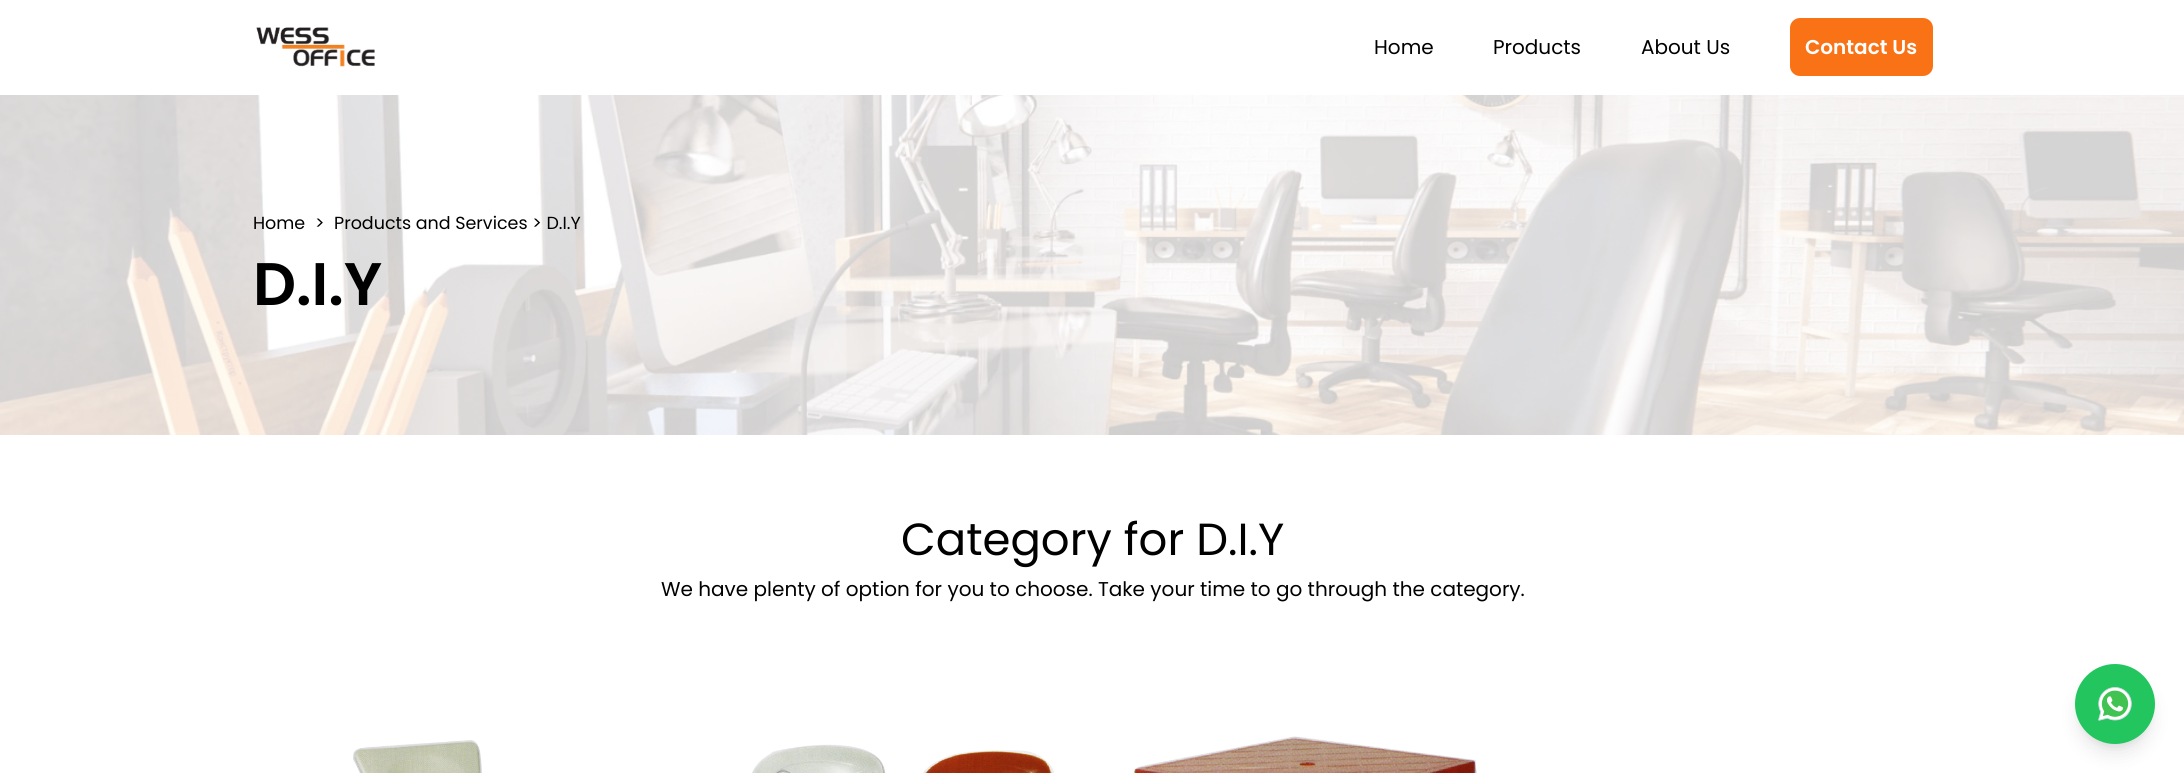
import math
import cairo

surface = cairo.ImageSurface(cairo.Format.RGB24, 2184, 773)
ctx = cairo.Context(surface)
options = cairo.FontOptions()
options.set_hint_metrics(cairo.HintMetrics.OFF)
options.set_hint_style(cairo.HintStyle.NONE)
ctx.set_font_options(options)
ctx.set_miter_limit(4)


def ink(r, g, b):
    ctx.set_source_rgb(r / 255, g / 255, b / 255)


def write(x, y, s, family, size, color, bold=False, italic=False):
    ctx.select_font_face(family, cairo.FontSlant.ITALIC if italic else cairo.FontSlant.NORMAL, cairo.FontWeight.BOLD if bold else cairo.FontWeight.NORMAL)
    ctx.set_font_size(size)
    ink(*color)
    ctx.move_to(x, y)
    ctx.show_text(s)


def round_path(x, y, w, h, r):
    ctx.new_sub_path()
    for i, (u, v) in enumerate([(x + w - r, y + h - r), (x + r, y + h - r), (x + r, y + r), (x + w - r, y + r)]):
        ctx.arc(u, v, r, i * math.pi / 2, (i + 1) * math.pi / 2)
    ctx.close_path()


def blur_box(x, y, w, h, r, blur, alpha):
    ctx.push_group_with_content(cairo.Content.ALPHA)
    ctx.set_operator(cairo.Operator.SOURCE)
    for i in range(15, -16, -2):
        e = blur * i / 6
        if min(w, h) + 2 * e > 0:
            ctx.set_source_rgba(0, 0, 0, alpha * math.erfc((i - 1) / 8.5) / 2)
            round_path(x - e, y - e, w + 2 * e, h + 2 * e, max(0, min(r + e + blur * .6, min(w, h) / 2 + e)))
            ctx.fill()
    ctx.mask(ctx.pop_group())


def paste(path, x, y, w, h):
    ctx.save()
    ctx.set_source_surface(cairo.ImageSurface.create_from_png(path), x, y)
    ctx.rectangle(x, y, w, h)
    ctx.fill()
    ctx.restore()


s1 = dict(family="Poppins", size=20, color=(0, 0, 0))
s2 = dict(family="Poppins SemiBold", size=20, color=(255, 255, 255))
s3 = dict(family="Poppins", size=17.5, color=(0, 0, 0))
s4 = dict(family="Poppins SemiBold", size=60, color=(0, 0, 0))
s5 = dict(family="Poppins", size=45, color=(0, 0, 0))

ink(255, 255, 255)
ctx.paint()
paste("pic1.png", 256, 27, 119, 40)
write(1374, 54, "Home", **s1)
write(1493, 54, "Products", **s1)
write(1641, 54, "About Us", **s1)
ink(249, 115, 22)
round_path(1790, 18, 143, 58, 10)
ctx.fill()
write(1805, 54, "Contact Us", **s2)
paste("pic2.png", 0, 95, 2184, 340)
write(253, 229, "Home", **s3)
write(315, 229, ">", **s3)
write(334, 229, "Products and Services > D.I.Y", **s3)
write(253, 305, "D.I.Y", **s4)
write(901, 555, "Category for D.I.Y", **s5)
write(661, 596, "We have plenty of option for you to choose. Take your time to go through the category.", **s1)
paste("pic3.png", 353, 740, 129, 33)
paste("pic4.png", 752, 744, 302, 29)
paste("pic5.png", 1134, 736, 343, 37)
ink(0, 0, 0)
blur_box(2080, 674, 70, 70, 35, 4, 0.1)
blur_box(2079, 680, 72, 73, 36, 9.5, 0.1)
ink(34, 197, 94)
ctx.arc(2115, 704, 40, 0, 2 * math.pi)
ctx.fill()
paste("pic6.png", 2098, 687, 34, 34)
surface.write_to_png("screenshot.png")
